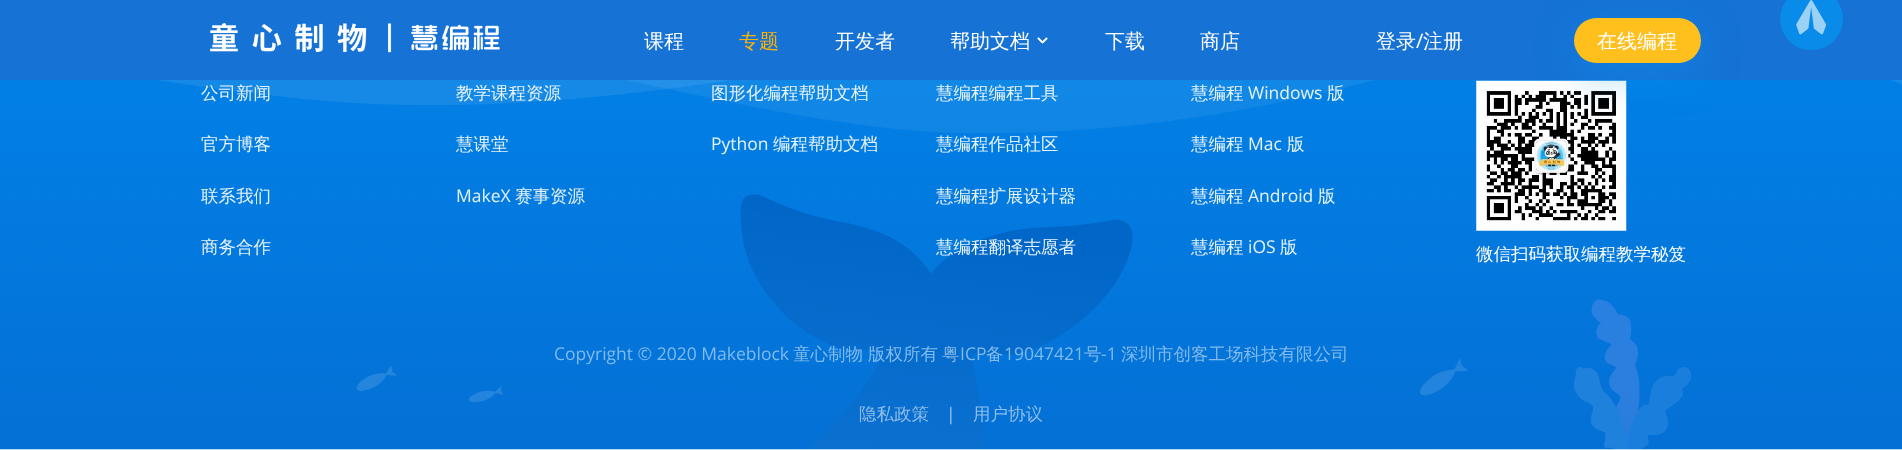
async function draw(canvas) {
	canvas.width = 1902;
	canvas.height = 450;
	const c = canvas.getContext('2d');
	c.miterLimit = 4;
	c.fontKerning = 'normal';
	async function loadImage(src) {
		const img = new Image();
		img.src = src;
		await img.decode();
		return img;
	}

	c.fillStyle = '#f5fbff';
	c.fillRect(0, 0, 1902, 450);
	c.fillStyle = '#1672d5';
	c.fillRect(0, 0, 1902, 80);
	c.drawImage(await loadImage('img1.png'), 210, 23, 290, 30);
	c.font = '500 20px WenQuanYi Zen Hei';
	c.fillStyle = '#fff';
	c.fillText('课程', 644, 48);
	c.fillStyle = '#ffb200';
	c.fillText('专题', 739, 48);
	c.fillStyle = '#fff';
	c.fillText('开发者', 835, 48);
	c.fillText('帮助文档', 950, 48);
	c.drawImage(await loadImage('img2.png'), 1037, 37, 11, 7);
	for (const [text, x, y] of [
		['下载', 1105, 48],
		['商店', 1200, 48],
		['登录', 1376, 48],
	]) {
		c.fillText(text, x, y);
	}
	c.font = '20px Open Sans';
	c.fillText('/', 1416, 48);
	c.font = '500 20px WenQuanYi Zen Hei';
	c.fillText('注册', 1423, 48);
	c.drawImage(await loadImage('img4.png'), 0, 80, 1902, 370);
	c.drawImage(await loadImage('img5.png'), 1476, 80, 151, 151);
	c.fillStyle = '#0597f066';
	c.filter = 'blur(20px)';
	c.beginPath();
	c.roundRect(1574, 28, 127, 45, 22.5);
	c.fill();
	c.filter = 'none';
	c.fillStyle = '#ffc01e';
	c.beginPath();
	c.roundRect(1574, 18, 127, 45, 22.5);
	c.fill();
	c.fillStyle = '#fff';
	c.fillText('在线编程', 1597, 48);
	c.fillStyle = '#098ce9';
	c.beginPath();
	c.roundRect(1780, -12, 63, 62, 31);
	c.fill();
	c.drawImage(await loadImage('img3.png'), 1796, 0, 31, 35);
	c.font = '500 17.5px WenQuanYi Zen Hei';
	c.fillStyle = '#e7f3fc';
	for (const [text, x, y] of [
		['公司新闻', 201, 99],
		['官方博客', 201, 150],
		['联系我们', 201, 202],
		['商务合作', 201, 253],
		['教学课程资源', 456, 99],
		['慧课堂', 456, 150],
	]) {
		c.fillText(text, x, y);
	}
	c.font = '17.5px Open Sans';
	c.fillText('MakeX', 456, 202);
	c.font = '500 17.5px WenQuanYi Zen Hei';
	c.fillText('赛事资源', 515, 202);
	c.fillText('图形化编程帮助文档', 711, 99);
	c.font = '17.5px Open Sans';
	c.fillText('Python', 711, 150);
	c.font = '500 17.5px WenQuanYi Zen Hei';
	for (const [text, x, y] of [
		['编程帮助文档', 773, 150],
		['慧编程编程工具', 936, 99],
		['慧编程作品社区', 936, 150],
		['慧编程扩展设计器', 936, 202],
		['慧编程翻译志愿者', 936, 253],
		['慧编程', 1191, 99],
	]) {
		c.fillText(text, x, y);
	}
	c.font = '17.5px Open Sans';
	c.fillText('Windows', 1248, 99);
	c.font = '500 17.5px WenQuanYi Zen Hei';
	c.fillText('版', 1327, 99);
	c.fillText('慧编程', 1191, 150);
	c.font = '17.5px Open Sans';
	c.fillText('Mac', 1248, 150);
	c.font = '500 17.5px WenQuanYi Zen Hei';
	c.fillText('版', 1287, 150);
	c.fillText('慧编程', 1191, 202);
	c.font = '17.5px Open Sans';
	c.fillText('Android', 1248, 202);
	c.font = '500 17.5px WenQuanYi Zen Hei';
	c.fillText('版', 1318, 202);
	c.fillText('慧编程', 1191, 253);
	c.font = '17.5px Open Sans';
	c.fillText('iOS', 1248, 253);
	c.font = '500 17.5px WenQuanYi Zen Hei';
	c.fillText('版', 1280, 253);
	c.fillStyle = '#fff';
	c.fillText('微信扫码获取编程教学秘笈', 1476, 260);
	c.font = '17.5px Open Sans';
	c.fillStyle = '#81baec';
	c.fillText('Copyright © 2020 Makeblock', 554, 360);
	c.font = '500 17.5px WenQuanYi Zen Hei';
	c.fillText('童心制物', 793, 360);
	c.fillText('版权所有', 868, 360);
	c.fillStyle = '#82b5e6';
	c.fillText('粤', 942, 360);
	c.font = '17.5px Open Sans';
	c.fillStyle = '#81baec';
	c.fillText('ICP', 960, 360);
	c.font = '500 17.5px WenQuanYi Zen Hei';
	c.fillText('备', 986, 360);
	c.font = '17.5px Open Sans';
	c.fillText('19047421', 1004, 360);
	c.font = '500 17.5px WenQuanYi Zen Hei';
	c.fillText('号', 1084, 360);
	c.font = '17.5px Open Sans';
	c.fillText('-1', 1101, 360);
	c.font = '500 17.5px WenQuanYi Zen Hei';
	c.fillText('深圳市创客工场科技有限公司', 1121, 360);
	c.fillStyle = '#8ebde9';
	c.fillText('隐私政策', 859, 420);
	c.font = '17.5px Open Sans';
	c.fillStyle = '#9cc5ec';
	c.fillText('|', 946, 420);
	c.font = '500 17.5px WenQuanYi Zen Hei';
	c.fillStyle = '#8ebde9';
	c.fillText('用户协议', 973, 420);
}

draw(document.querySelector('canvas'));
